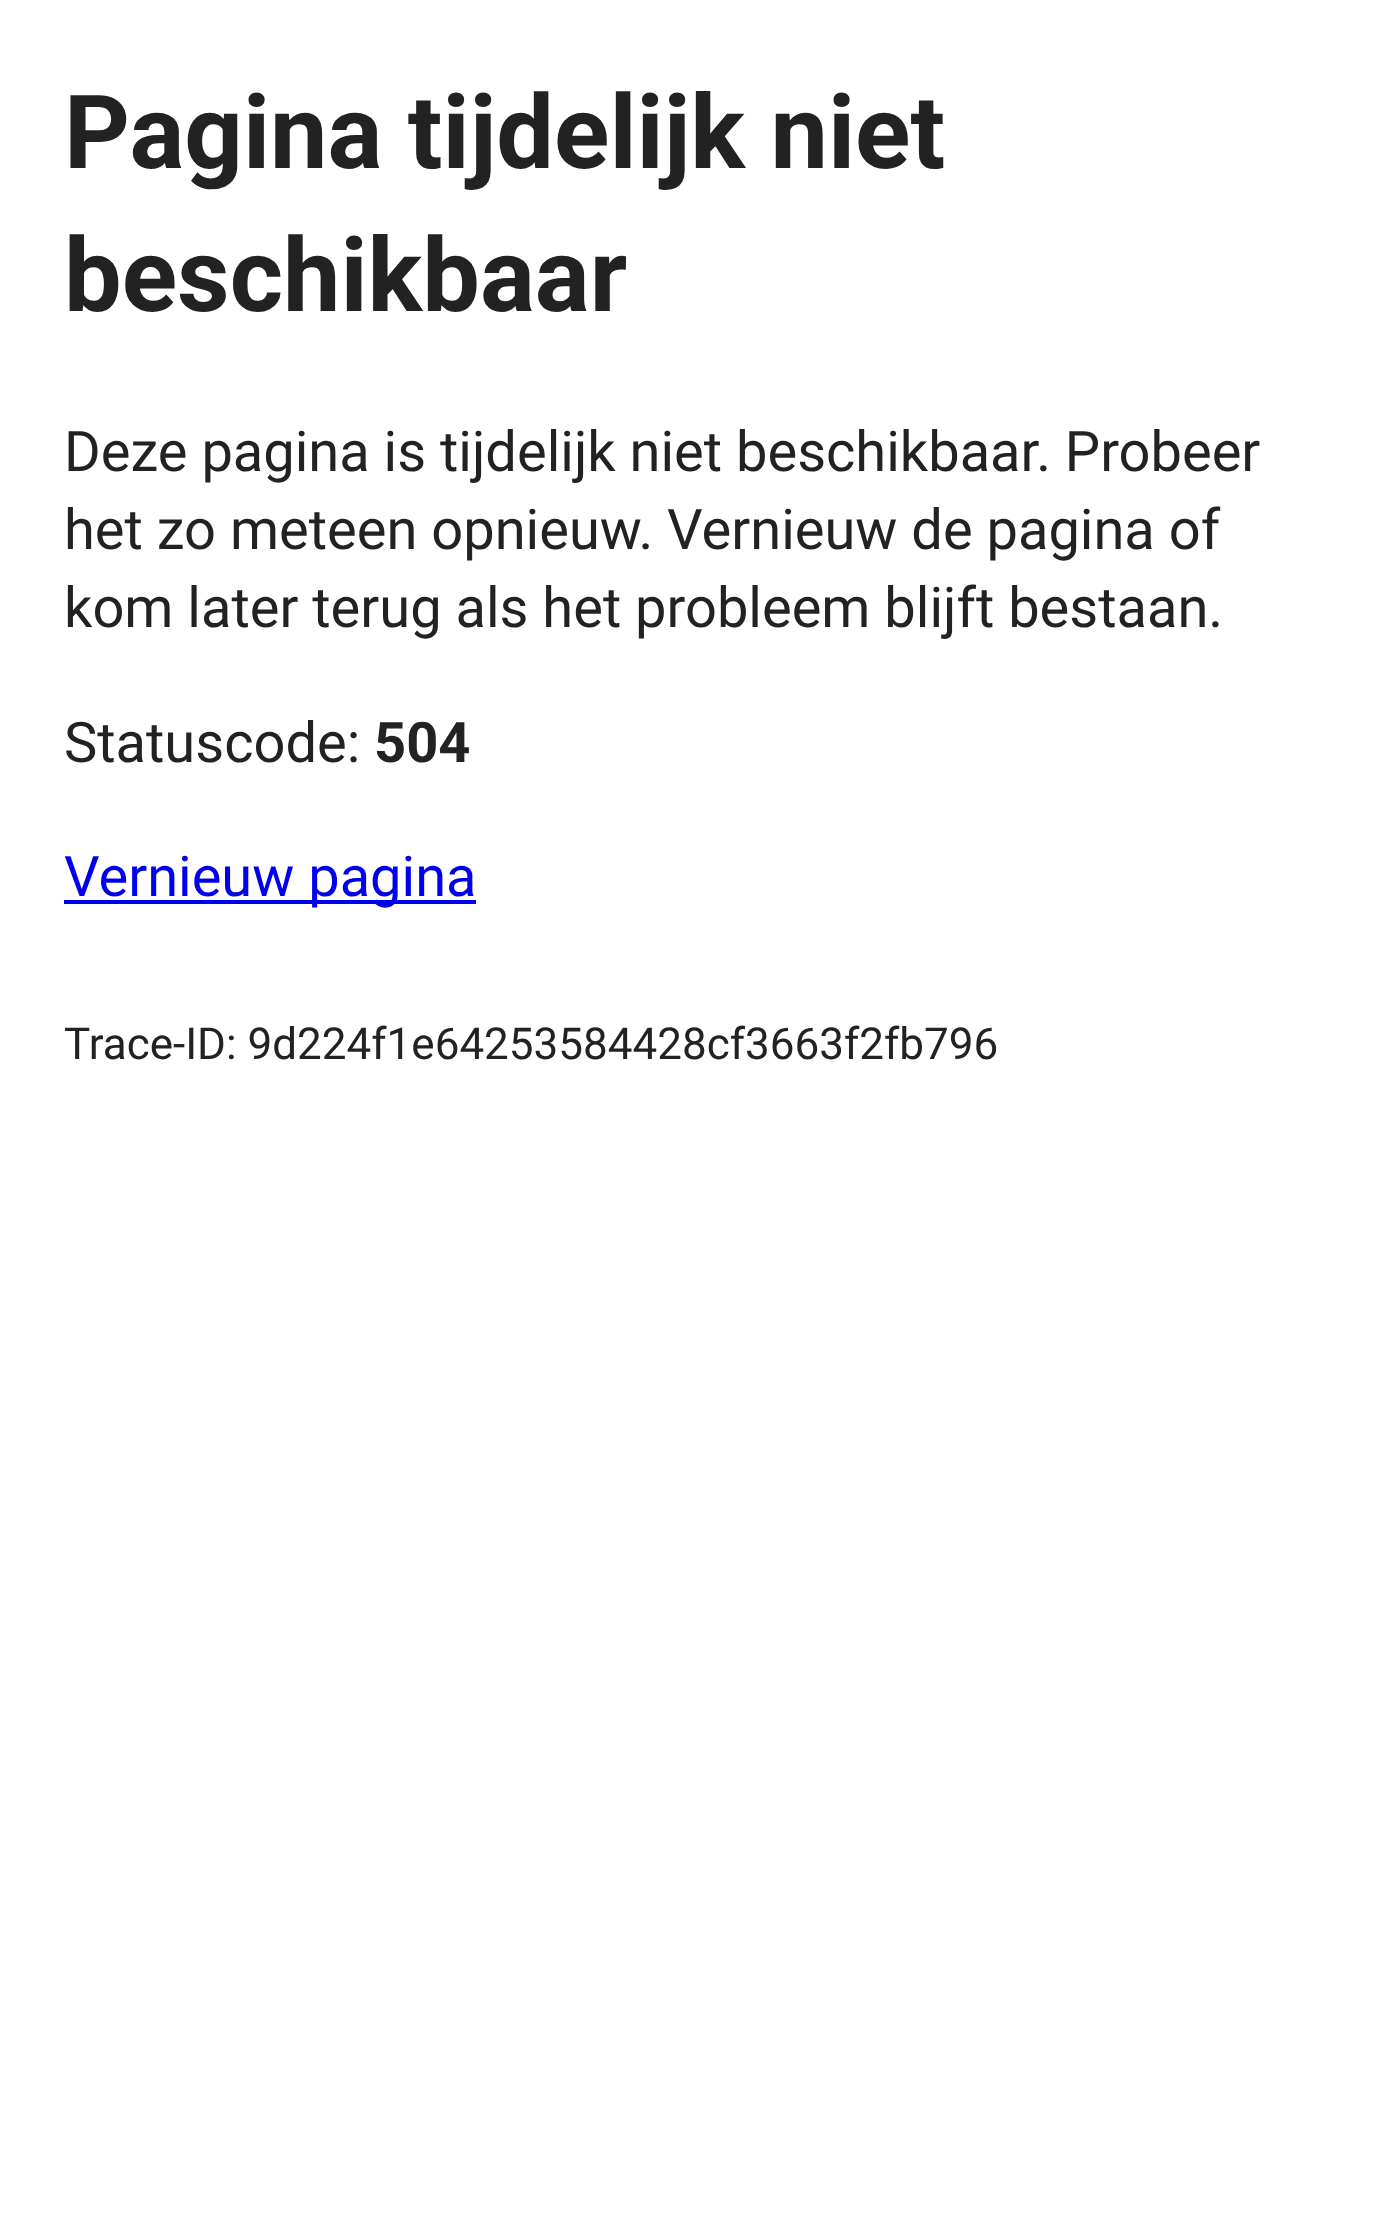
async function draw(canvas) {
	canvas.width = 1395;
	canvas.height = 2232;
	const c = canvas.getContext('2d');
	c.miterLimit = 4;
	c.fontKerning = 'normal';

	c.fillStyle = '#fff';
	c.fillRect(0, 0, 1395, 2232);
	c.font = 'bold 102.5px Roboto';
	c.fillStyle = '#222';
	c.fillText('Pagina tijdelijk niet', 64, 168);
	c.fillText('beschikbaar', 64, 311);
	c.font = '56px Roboto';
	for (const [text, x, y] of [
		['Deze pagina is tijdelijk niet beschikbaar. Probeer', 64, 471],
		['het zo meteen opnieuw. Vernieuw de pagina of', 64, 549],
		['kom later terug als het probleem blijft bestaan.', 64, 627],
		['Statuscode:', 64, 762],
	]) {
		c.fillText(text, x, y);
	}
	c.font = 'bold 56px Roboto';
	c.fillText('504', 374, 762);
	c.fillStyle = '#00e';
	c.fillRect(64, 900, 412, 4);
	c.font = '56px Roboto';
	c.fillText('Vernieuw pagina', 64, 896);
	c.font = '44px Roboto';
	c.fillStyle = '#222';
	c.fillText('Trace-ID: 9d224f1e64253584428cf3663f2fb796', 64, 1059);
}

draw(document.querySelector('canvas'));
